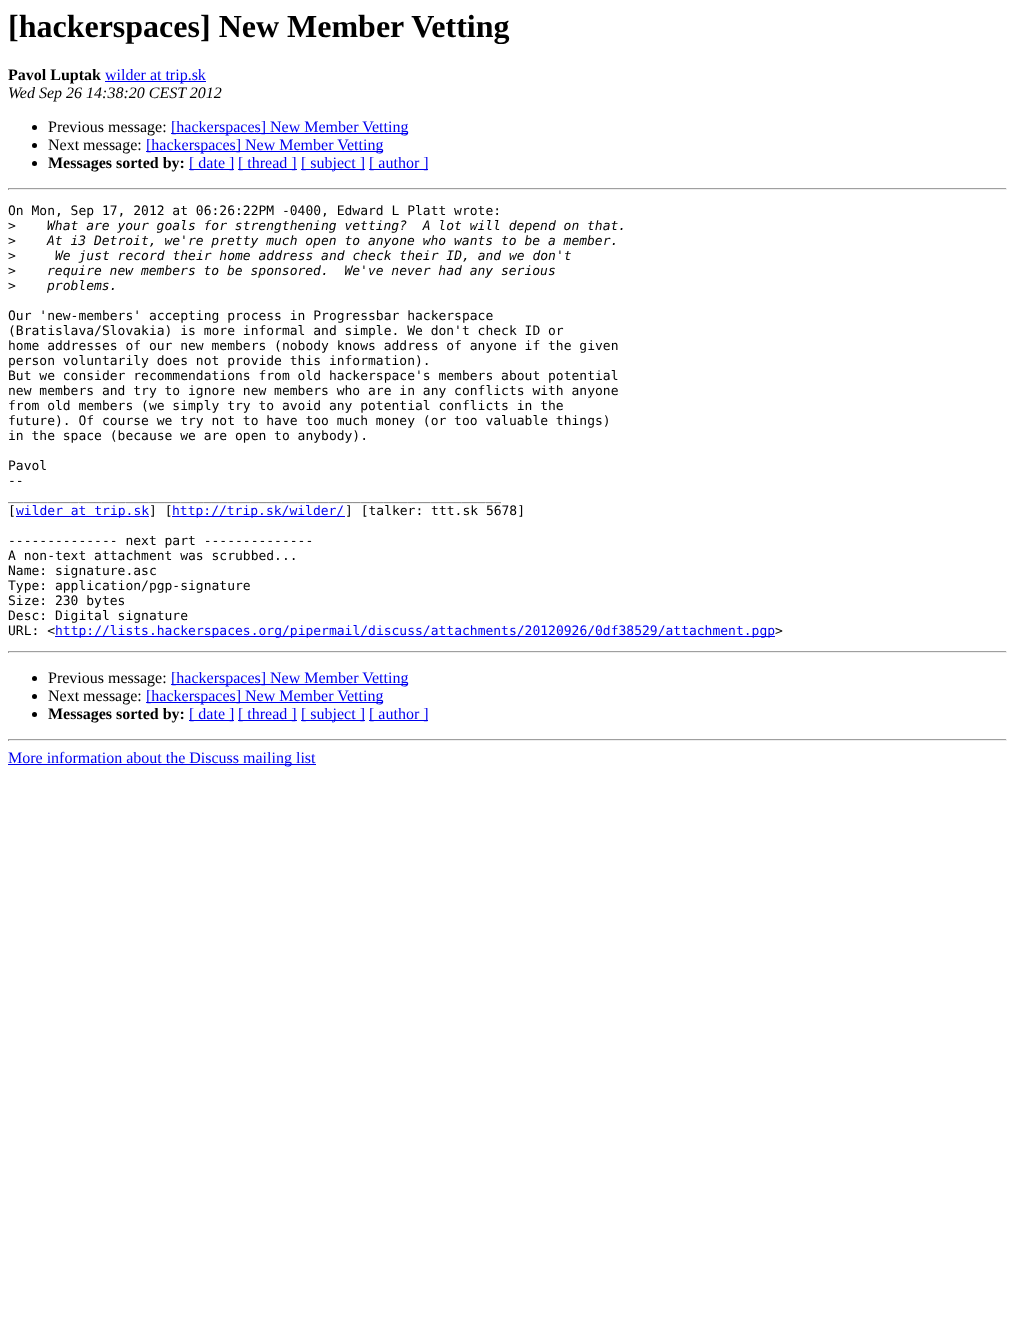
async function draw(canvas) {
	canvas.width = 1015;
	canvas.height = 1335;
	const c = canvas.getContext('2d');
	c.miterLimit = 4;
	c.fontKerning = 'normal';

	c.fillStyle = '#fff';
	c.fillRect(0, 0, 1015, 1335);
	c.font = 'bold 32px Liberation Serif';
	c.fillStyle = '#000';
	c.fillText('[hackerspaces] New Member Vetting', 8, 37);
	c.font = 'bold 16px Liberation Serif';
	c.fillText('Pavol Luptak', 8, 80);
	c.fillStyle = '#00e';
	c.fillRect(105, 81, 101, 1);
	c.font = '16px Liberation Serif';
	c.fillText('wilder at trip.sk', 105, 80);
	c.font = 'italic 16px Liberation Serif';
	c.fillStyle = '#000';
	c.fillText('Wed Sep 26 14:38:20 CEST 2012', 8, 98);
	c.beginPath();
	c.arc(34.5, 127.5, 2.5, 0, 2 * Math.PI);
	c.fill();
	c.font = '16px Liberation Serif';
	c.fillText('Previous message:', 48, 132);
	c.fillStyle = '#00e';
	c.fillRect(171, 133, 237, 1);
	c.fillText('[hackerspaces] New Member Vetting', 171, 132);
	c.fillStyle = '#000';
	c.beginPath();
	c.arc(34.5, 145.5, 2.5, 0, 2 * Math.PI);
	c.fill();
	c.fillText('Next message:', 48, 150);
	c.fillStyle = '#00e';
	c.fillRect(146, 151, 237, 1);
	c.fillText('[hackerspaces] New Member Vetting', 146, 150);
	c.fillStyle = '#000';
	c.beginPath();
	c.arc(34.5, 163.5, 2.5, 0, 2 * Math.PI);
	c.fill();
	c.font = 'bold 16px Liberation Serif';
	c.fillText('Messages sorted by:', 48, 168);
	c.fillStyle = '#00e';
	c.fillRect(189, 169, 45, 1);
	c.font = '16px Liberation Serif';
	c.fillText('[ date ]', 189, 168);
	c.fillRect(238, 169, 59, 1);
	c.fillText('[ thread ]', 238, 168);
	c.fillRect(301, 169, 64, 1);
	c.fillText('[ subject ]', 301, 168);
	c.fillRect(369, 169, 59, 1);
	c.fillText('[ author ]', 369, 168);
	for (const [x, y, w, h, color] of [
		[8, 188, 999, 1, '#9f9f9f'],
		[1006, 188, 1, 2, '#eee'],
		[8, 189, 999, 1, '#eee'],
		[8, 188, 1, 2, '#9f9f9f'],
	]) {
		c.fillStyle = color;
		c.fillRect(x, y, w, h);
	}
	c.font = '13px DejaVu Sans Mono';
	c.fillStyle = '#000';
	c.fillText('On Mon, Sep 17, 2012 at 06:26:22PM -0400, Edward L Platt wrote:', 8, 215);
	c.fillText('>', 8, 230);
	c.font = 'italic 13px DejaVu Sans Mono';
	c.fillText('What are your goals for strengthening vetting?  A lot will depend on that.', 47, 230);
	c.font = '13px DejaVu Sans Mono';
	c.fillText('>', 8, 245);
	c.font = 'italic 13px DejaVu Sans Mono';
	c.fillText('At i3 Detroit, we\'re pretty much open to anyone who wants to be a member.', 47, 245);
	c.font = '13px DejaVu Sans Mono';
	c.fillText('>', 8, 260);
	c.font = 'italic 13px DejaVu Sans Mono';
	c.fillText('We just record their home address and check their ID, and we don\'t', 55, 260);
	c.font = '13px DejaVu Sans Mono';
	c.fillText('>', 8, 275);
	c.font = 'italic 13px DejaVu Sans Mono';
	c.fillText('require new members to be sponsored.  We\'ve never had any serious', 47, 275);
	c.font = '13px DejaVu Sans Mono';
	c.fillText('>', 8, 290);
	c.font = 'italic 13px DejaVu Sans Mono';
	c.fillText('problems.', 47, 290);
	c.font = '13px DejaVu Sans Mono';
	for (const [text, x, y] of [
		['Our \'new-members\' accepting process in Progressbar hackerspace', 8, 320],
		['(Bratislava/Slovakia) is more informal and simple. We don\'t check ID or', 8, 335],
		['home addresses of our new members (nobody knows address of anyone if the given', 8, 350],
		['person voluntarily does not provide this information).', 8, 365],
		['But we consider recommendations from old hackerspace\'s members about potential', 8, 380],
		['new members and try to ignore new members who are in any conflicts with anyone', 8, 395],
		['from old members (we simply try to avoid any potential conflicts in the', 8, 410],
		['future). Of course we try not to have too much money (or too valuable things)', 8, 425],
		['in the space (because we are open to anybody).', 8, 440],
		['Pavol', 8, 470],
		['--', 8, 485],
		['_______________________________________________________________', 8, 500],
		['[', 8, 515],
	]) {
		c.fillText(text, x, y);
	}
	c.fillStyle = '#00e';
	c.fillRect(16, 516, 133, 1);
	c.fillText('wilder at trip.sk', 16, 515);
	c.fillStyle = '#000';
	c.fillText('] [', 149, 515);
	c.fillStyle = '#00e';
	c.fillRect(172, 516, 173, 1);
	c.fillText('http://trip.sk/wilder/', 172, 515);
	c.fillStyle = '#000';
	for (const [text, x, y] of [
		['] [talker: ttt.sk 5678]', 345, 515],
		['-------------- next part --------------', 8, 545],
		['A non-text attachment was scrubbed...', 8, 560],
		['Name: signature.asc', 8, 575],
		['Type: application/pgp-signature', 8, 590],
		['Size: 230 bytes', 8, 605],
		['Desc: Digital signature', 8, 620],
		['URL: <', 8, 635],
	]) {
		c.fillText(text, x, y);
	}
	c.fillStyle = '#00e';
	c.fillRect(55, 636, 720, 1);
	c.fillText('http://lists.hackerspaces.org/pipermail/discuss/attachments/20120926/0df38529/attachment.pgp', 55, 635);
	c.fillStyle = '#000';
	c.fillText('>', 775, 635);
	for (const [x, y, w, h, color] of [
		[8, 651, 999, 1, '#9f9f9f'],
		[1006, 651, 1, 2, '#eee'],
		[8, 652, 999, 1, '#eee'],
		[8, 651, 1, 2, '#9f9f9f'],
	]) {
		c.fillStyle = color;
		c.fillRect(x, y, w, h);
	}
	c.fillStyle = '#000';
	c.beginPath();
	c.arc(34.5, 678.5, 2.5, 0, 2 * Math.PI);
	c.fill();
	c.font = '16px Liberation Serif';
	c.fillText('Previous message:', 48, 683);
	c.fillStyle = '#00e';
	c.fillRect(171, 684, 237, 1);
	c.fillText('[hackerspaces] New Member Vetting', 171, 683);
	c.fillStyle = '#000';
	c.beginPath();
	c.arc(34.5, 696.5, 2.5, 0, 2 * Math.PI);
	c.fill();
	c.fillText('Next message:', 48, 701);
	c.fillStyle = '#00e';
	c.fillRect(146, 702, 237, 1);
	c.fillText('[hackerspaces] New Member Vetting', 146, 701);
	c.fillStyle = '#000';
	c.beginPath();
	c.arc(34.5, 714.5, 2.5, 0, 2 * Math.PI);
	c.fill();
	c.font = 'bold 16px Liberation Serif';
	c.fillText('Messages sorted by:', 48, 719);
	c.fillStyle = '#00e';
	c.fillRect(189, 720, 45, 1);
	c.font = '16px Liberation Serif';
	c.fillText('[ date ]', 189, 719);
	c.fillRect(238, 720, 59, 1);
	c.fillText('[ thread ]', 238, 719);
	c.fillRect(301, 720, 64, 1);
	c.fillText('[ subject ]', 301, 719);
	c.fillRect(369, 720, 59, 1);
	c.fillText('[ author ]', 369, 719);
	for (const [x, y, w, h, color] of [
		[8, 739, 999, 1, '#9f9f9f'],
		[1006, 739, 1, 2, '#eee'],
		[8, 740, 999, 1, '#eee'],
		[8, 739, 1, 2, '#9f9f9f'],
		[8, 764, 308, 1, '#00e'],
	]) {
		c.fillStyle = color;
		c.fillRect(x, y, w, h);
	}
	c.fillText('More information about the Discuss mailing list', 8, 763);
}

draw(document.querySelector('canvas'));
